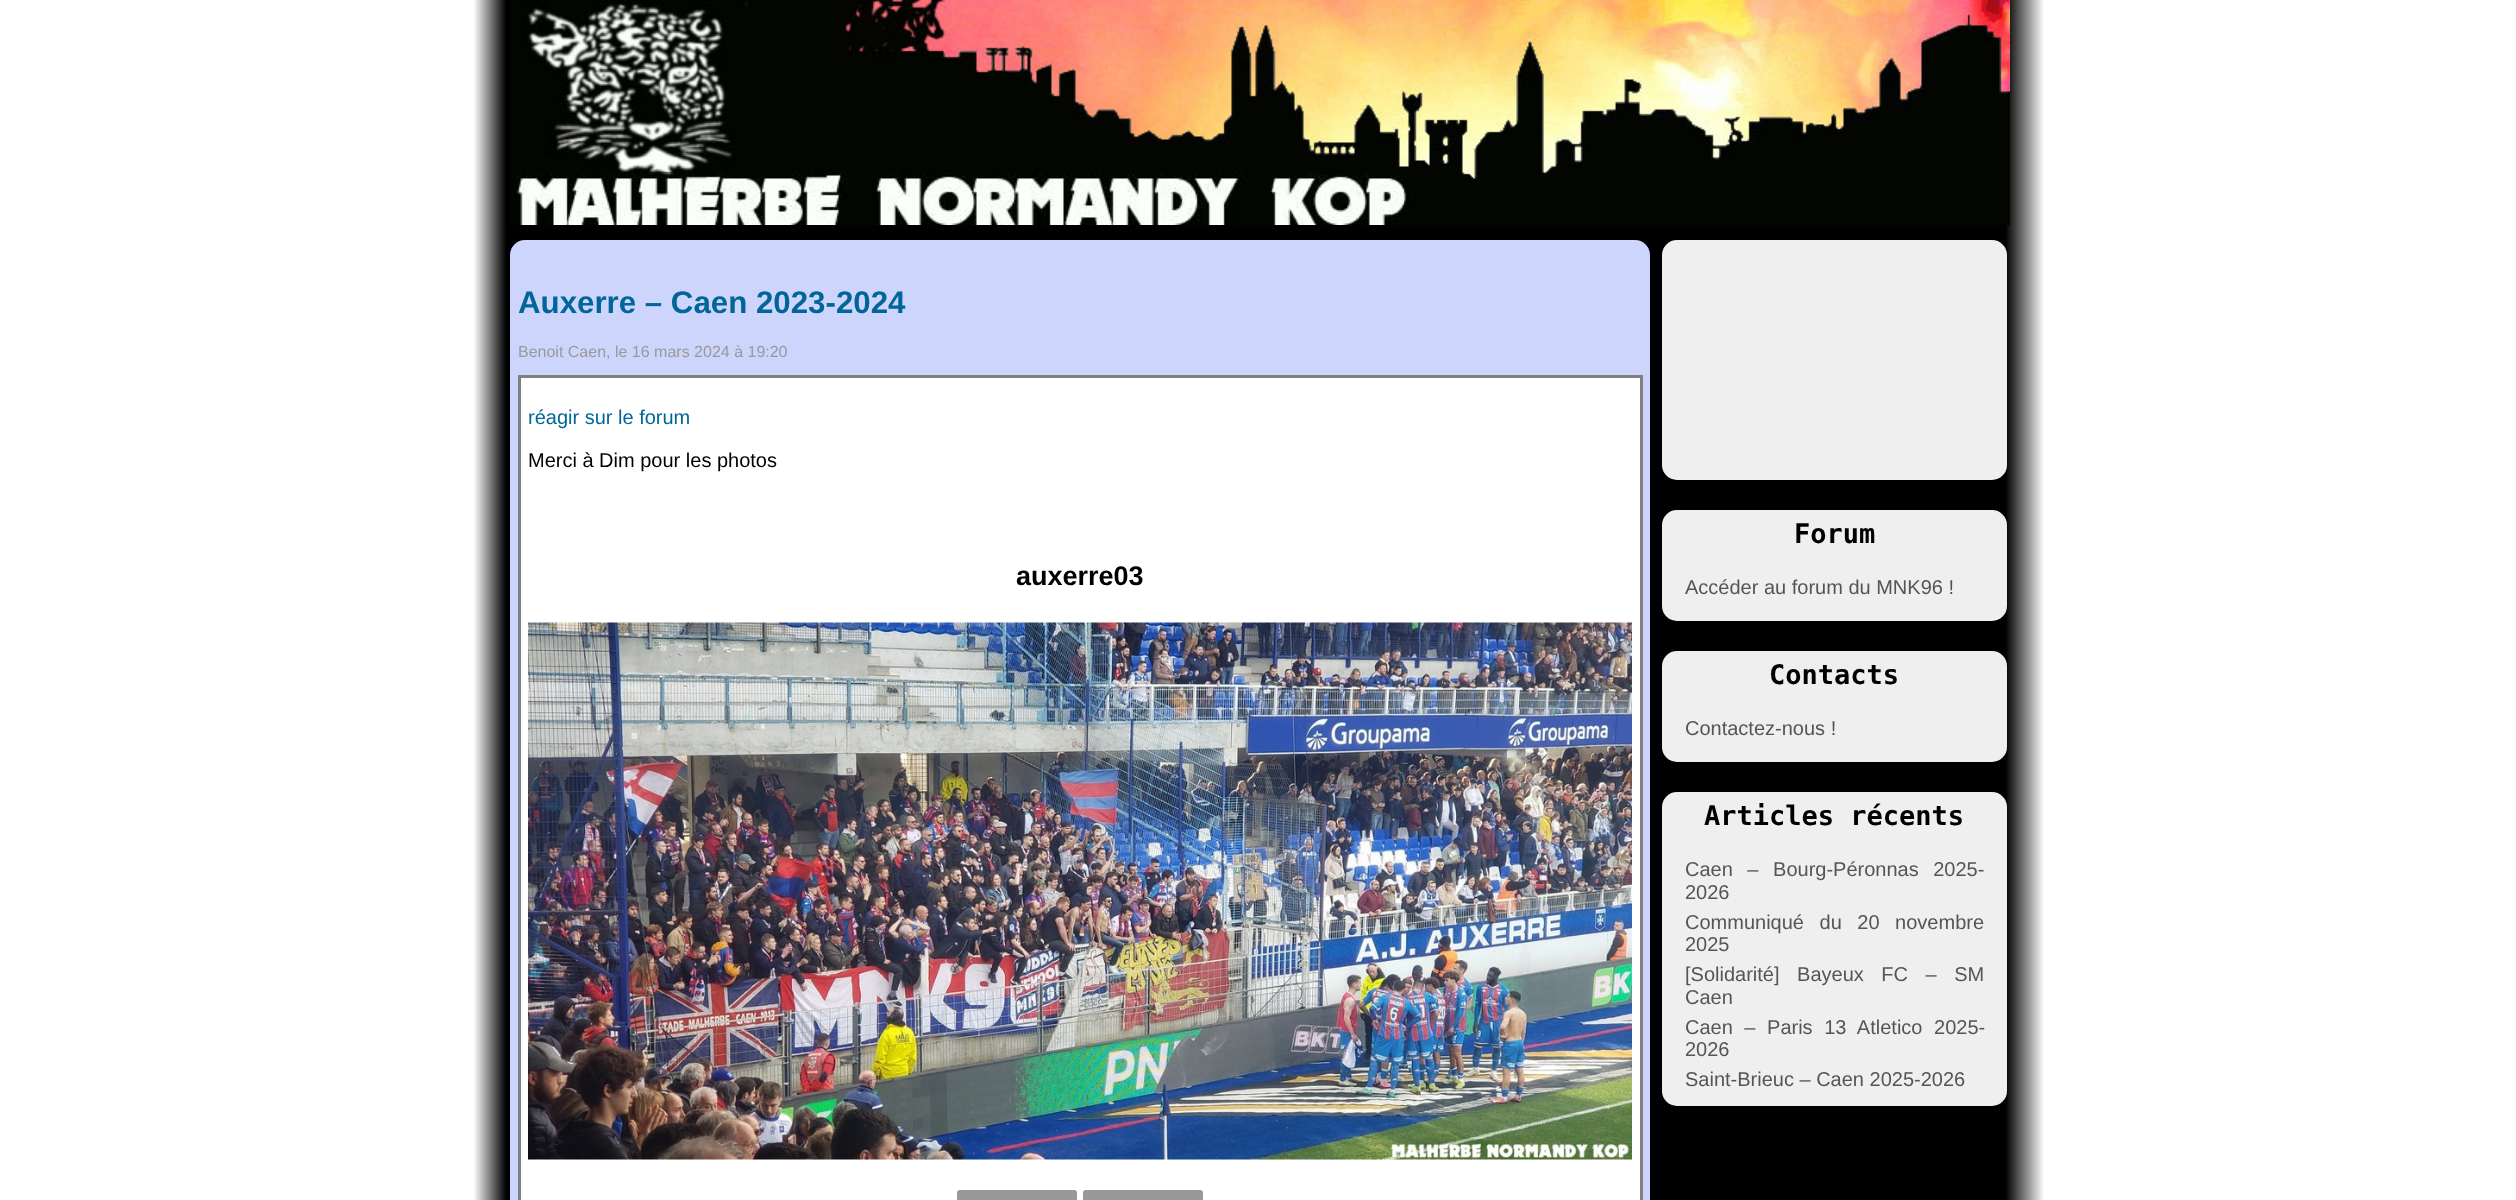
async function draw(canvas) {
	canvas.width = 2516;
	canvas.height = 1200;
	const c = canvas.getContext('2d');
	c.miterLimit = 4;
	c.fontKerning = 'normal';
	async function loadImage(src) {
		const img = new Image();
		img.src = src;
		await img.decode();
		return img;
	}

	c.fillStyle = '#fff';
	c.fillRect(0, 0, 2516, 1200);
	c.drawImage(await loadImage('img1.png'), 474, 0, 1570, 1200);
	c.drawImage(await loadImage('img2.png'), 510, 0, 1500, 225);
	c.drawImage(await loadImage('img3.png'), 515, 172, 897, 53);
	c.fillStyle = '#cdd5fc';
	c.beginPath();
	c.roundRect(510, 240, 1140, 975, 15);
	c.fill();
	c.font = 'bold 31.25px Liberation Sans';
	c.fillStyle = '#069';
	c.fillText('Auxerre – Caen 2023-2024', 518, 313);
	c.font = '16px Liberation Sans';
	c.fillStyle = '#999';
	c.fillText('Benoit Caen, le 16 mars 2024 à 19:20', 518, 357);
	c.fillStyle = '#fff';
	c.beginPath();
	c.rect(519.5, 376.5, 1122, 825);
	c.fill();
	c.strokeStyle = '#808080';
	c.lineWidth = 3;
	c.stroke();
	c.font = '20px Liberation Sans';
	c.fillStyle = '#069';
	c.fillText('réagir sur le forum', 528, 424);
	c.fillStyle = '#000';
	c.fillText('Merci à Dim pour les photos', 528, 467);
	c.font = 'bold 27px Liberation Sans';
	c.fillText('auxerre03', 1016, 585);
	c.drawImage(await loadImage('img4.png'), 528, 622, 1104, 538);
	c.fillStyle = '#999';
	c.beginPath();
	c.roundRect(957, 1190, 120, 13, 3);
	c.fill();
	c.beginPath();
	c.roundRect(1083, 1190, 120, 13, 3);
	c.fill();
	c.fillStyle = '#efefef';
	c.beginPath();
	c.roundRect(1662, 240, 345, 240, 15);
	c.fill();
	c.beginPath();
	c.roundRect(1662, 510, 345, 111, 15);
	c.fill();
	c.font = 'bold 27px DejaVu Sans Mono';
	c.fillStyle = '#000';
	c.fillText('Forum', 1794, 543);
	c.font = '20px Liberation Sans';
	c.fillStyle = '#555';
	c.fillText('Accéder au forum du MNK96 !', 1685, 594);
	c.fillStyle = '#efefef';
	c.beginPath();
	c.roundRect(1662, 651, 345, 111, 15);
	c.fill();
	c.font = 'bold 27px DejaVu Sans Mono';
	c.fillStyle = '#000';
	c.fillText('Contacts', 1769, 684);
	c.font = '20px Liberation Sans';
	c.fillStyle = '#555';
	c.fillText('Contactez-nous !', 1685, 735);
	c.fillStyle = '#efefef';
	c.beginPath();
	c.roundRect(1662, 792, 345, 314, 15);
	c.fill();
	c.font = 'bold 27px DejaVu Sans Mono';
	c.fillStyle = '#000';
	c.fillText('Articles récents', 1704, 825);
	c.wordSpacing = '9px';
	c.font = '20px Liberation Sans';
	c.fillStyle = '#555';
	c.fillText('Caen – Bourg-Péronnas 2025-', 1685, 876);
	c.wordSpacing = '0px';
	c.fillText('2026', 1685, 899);
	c.wordSpacing = '10px';
	c.fillText('Communiqué du 20 novembre', 1685, 929);
	c.wordSpacing = '0px';
	c.fillText('2025', 1685, 951);
	c.wordSpacing = '12px';
	c.fillText('[Solidarité] Bayeux FC – SM', 1685, 981);
	c.wordSpacing = '0px';
	c.fillText('Caen', 1685, 1004);
	c.wordSpacing = '6px';
	c.fillText('Caen – Paris 13 Atletico 2025-', 1685, 1034);
	c.wordSpacing = '0px';
	c.fillText('2026', 1685, 1056);
	c.fillText('Saint-Brieuc – Caen 2025-2026', 1685, 1086);
}

draw(document.querySelector('canvas'));
